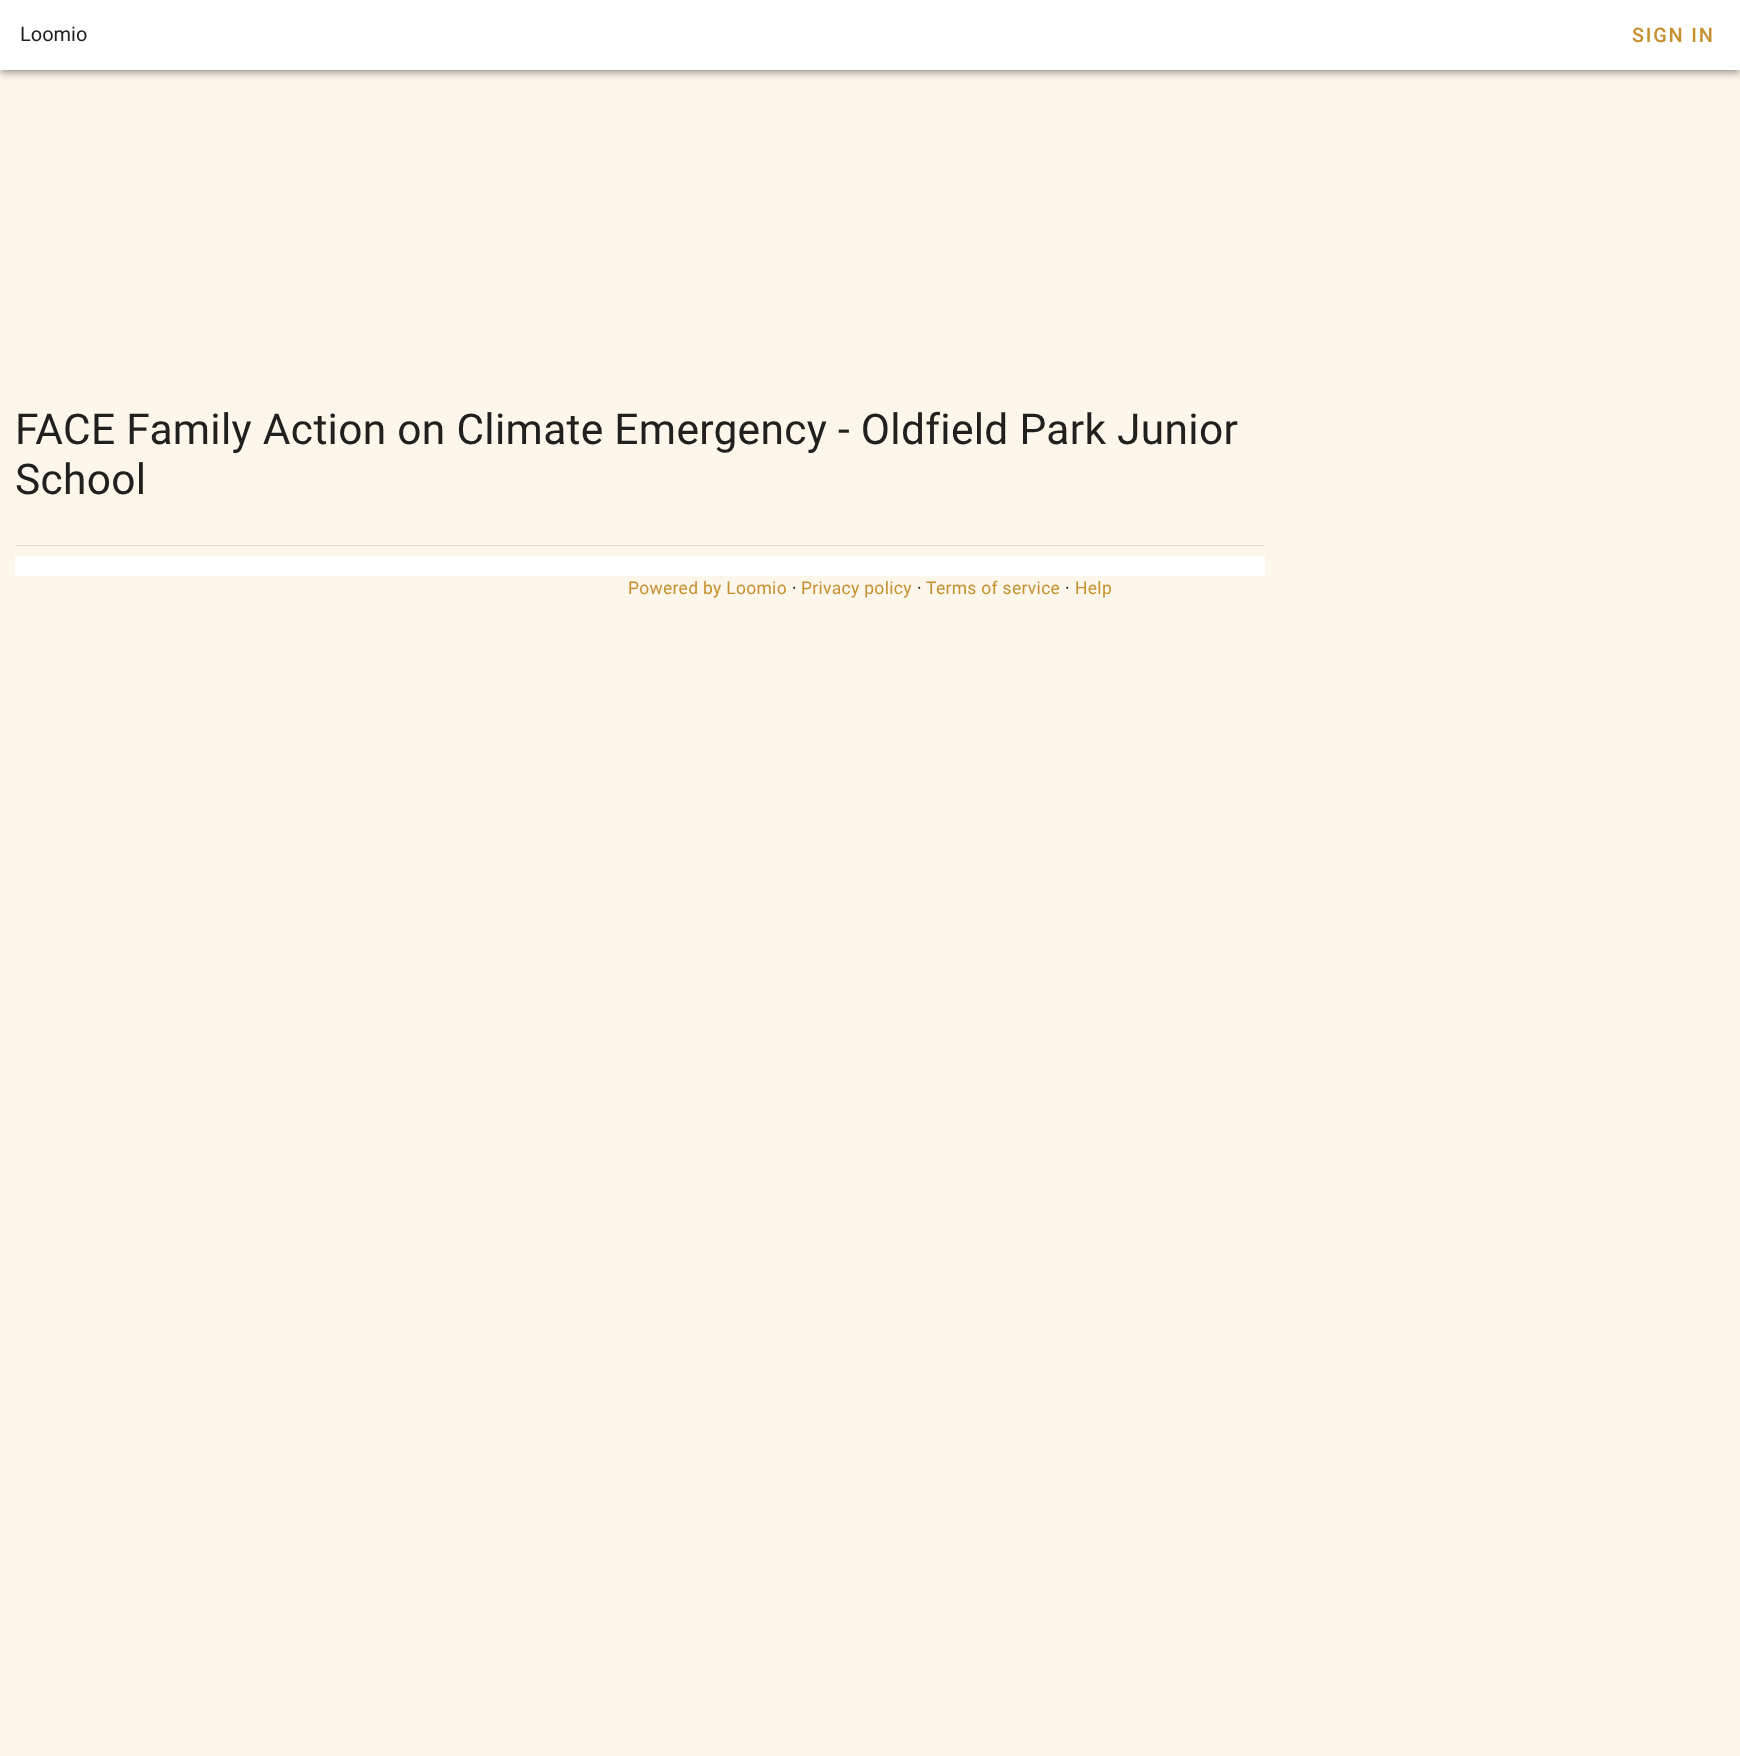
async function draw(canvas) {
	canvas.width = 1740;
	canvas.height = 1756;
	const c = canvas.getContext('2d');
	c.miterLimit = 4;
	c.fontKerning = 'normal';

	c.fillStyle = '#fcf6eb';
	c.fillRect(0, 0, 1740, 1756);
	c.fillStyle = '#0000001f';
	c.filter = 'blur(6px)';
	c.beginPath();
	c.rect(0, 1, 1740, 70);
	c.fill();
	c.filter = 'none';
	c.fillStyle = '#00000024';
	c.filter = 'blur(3px)';
	c.beginPath();
	c.rect(0, 5, 1740, 70);
	c.fill();
	c.filter = 'none';
	c.fillStyle = '#00000033';
	c.filter = 'blur(2.5px)';
	c.beginPath();
	c.rect(1, 4, 1738, 67);
	c.fill();
	c.filter = 'none';
	c.fillStyle = '#fff';
	c.fillRect(0, 0, 1740, 70);
	c.font = '20px Roboto';
	c.fillStyle = '#21201f';
	c.fillText('Loomio', 20, 41);
	c.letterSpacing = '1.75px';
	c.font = '500 20px Roboto';
	c.fillStyle = '#c6902f';
	c.fillText('SIGN IN', 1632, 42);
	c.letterSpacing = '0.3px';
	c.font = '42.5px Roboto';
	c.fillStyle = '#21201f';
	c.fillText('FACE Family Action on Climate Emergency - Oldfield Park Junior', 15, 444);
	c.fillText('School', 15, 494);
	c.fillStyle = '#e2dcd3';
	c.fillRect(15, 545, 1250, 1);
	c.fillStyle = '#fff';
	c.fillRect(15, 556, 1250, 20);
	c.font = '17.5px Roboto';
	c.fillStyle = '#c6902f';
	c.fillText('Powered by Loomio', 628, 594);
	c.fillStyle = '#21201f';
	c.fillText('·', 792, 594);
	c.fillStyle = '#c6902f';
	c.fillText('Privacy policy', 801, 594);
	c.fillStyle = '#21201f';
	c.fillText('·', 917, 594);
	c.fillStyle = '#c6902f';
	c.fillText('Terms of service', 926, 594);
	c.fillStyle = '#21201f';
	c.fillText('·', 1065, 594);
	c.fillStyle = '#c6902f';
	c.fillText('Help', 1075, 594);
}

draw(document.querySelector('canvas'));
